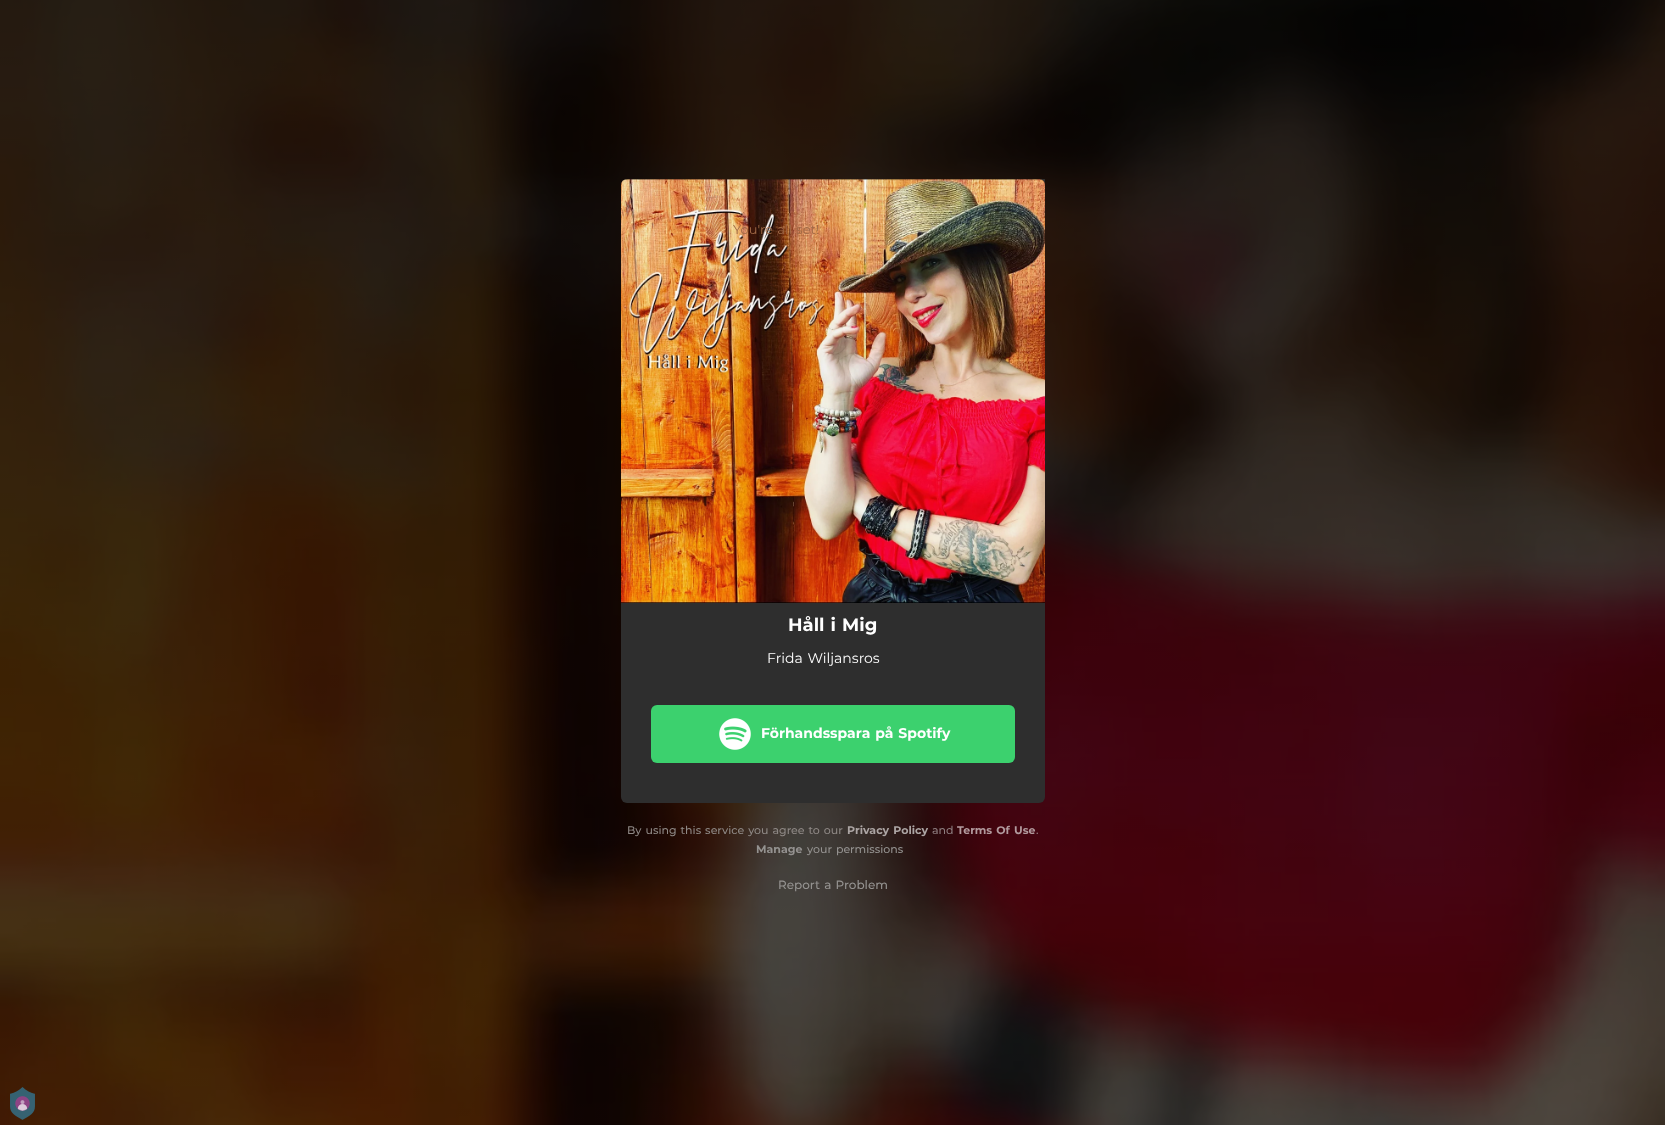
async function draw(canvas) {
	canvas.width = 1665;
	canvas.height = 1125;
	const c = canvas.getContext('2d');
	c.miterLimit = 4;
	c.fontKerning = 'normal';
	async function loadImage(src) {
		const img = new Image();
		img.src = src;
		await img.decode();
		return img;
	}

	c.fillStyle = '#fff';
	c.fillRect(0, 0, 1665, 1125);
	c.drawImage(await loadImage('img1.png'), 0, 0, 1665, 1125);
	c.fillStyle = '#2f2f2f';
	c.beginPath();
	c.roundRect(621, 179, 424, 424, [6, 0, 0, 6]);
	c.fill();
	c.drawImage(await loadImage('img2.png'), 621, 179, 424, 424);
	c.wordSpacing = '1px';
	c.font = '13px Montserrat';
	c.fillStyle = '#a16a47';
	c.fillText('You\'re all set!', 733, 234);
	c.fillStyle = '#2e2e2e';
	c.beginPath();
	c.roundRect(621, 603, 424, 200, [0, 0, 6, 6]);
	c.fill();
	c.font = 'bold 18px Montserrat';
	c.fillStyle = '#fff';
	c.fillText('Håll i Mig', 788, 631);
	c.font = '14px Montserrat';
	c.fillText('Frida Wiljansros', 767, 663);
	c.fillStyle = '#3cd16e';
	c.beginPath();
	c.roundRect(651, 705, 364, 58, 6);
	c.fill();
	c.drawImage(await loadImage('img3.png'), 719, 718, 32, 32);
	c.font = 'bold 14px Montserrat';
	c.fillStyle = '#fff';
	c.fillText('Förhandsspara på Spotify', 761, 738);
	c.font = '500 11px Montserrat';
	c.fillStyle = '#8e8885';
	c.fillText('By using this service you agree to our', 627, 834);
	c.font = 'bold 11px Montserrat';
	c.fillStyle = '#aca5a4';
	c.fillText('Privacy Policy', 847, 834);
	c.wordSpacing = '0px';
	c.font = '500 11px Montserrat';
	c.fillStyle = '#8d7d7f';
	c.fillText('and', 932, 834);
	c.wordSpacing = '1px';
	c.font = 'bold 11px Montserrat';
	c.fillStyle = '#b29a9e';
	c.fillText('Terms Of Use', 957, 834);
	c.wordSpacing = '0px';
	c.font = '500 11px Montserrat';
	c.fillStyle = '#957c81';
	c.fillText('.', 1036, 834);
	c.font = 'bold 11px Montserrat';
	c.fillStyle = '#949290';
	c.fillText('Manage', 756, 853);
	c.wordSpacing = '1px';
	c.font = '500 11px Montserrat';
	c.fillText('your permissions', 807, 853);
	c.font = '500 12px Montserrat';
	c.fillText('Report a Problem', 778, 889);
	c.drawImage(await loadImage('img4.png'), 10, 1087, 25, 33);
}

draw(document.querySelector('canvas'));
